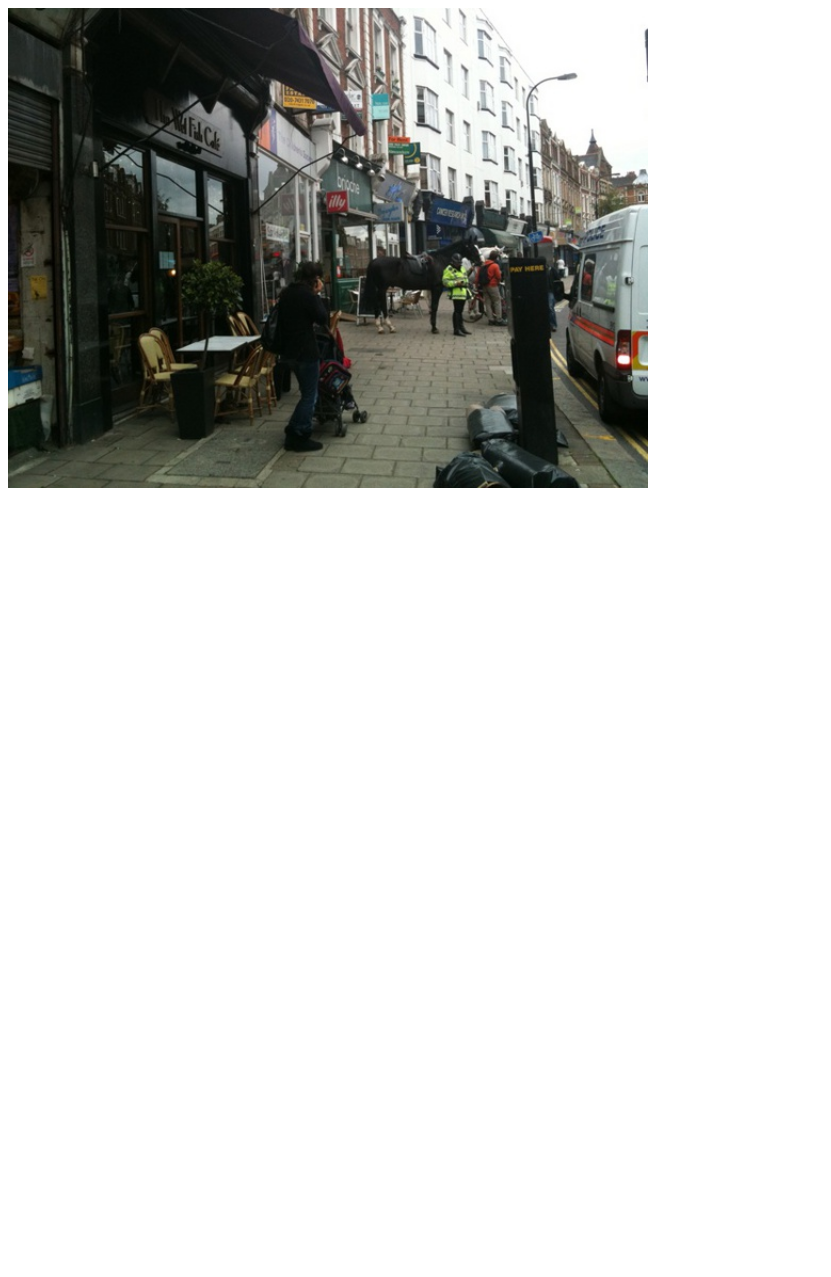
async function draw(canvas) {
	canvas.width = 831;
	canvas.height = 1277;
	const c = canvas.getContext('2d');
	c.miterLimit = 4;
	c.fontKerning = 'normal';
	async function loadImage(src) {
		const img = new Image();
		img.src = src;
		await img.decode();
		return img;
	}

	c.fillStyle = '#fff';
	c.fillRect(0, 0, 831, 1277);
	c.drawImage(await loadImage('img1.png'), 8, 8, 640, 480);
}

draw(document.querySelector('canvas'));
